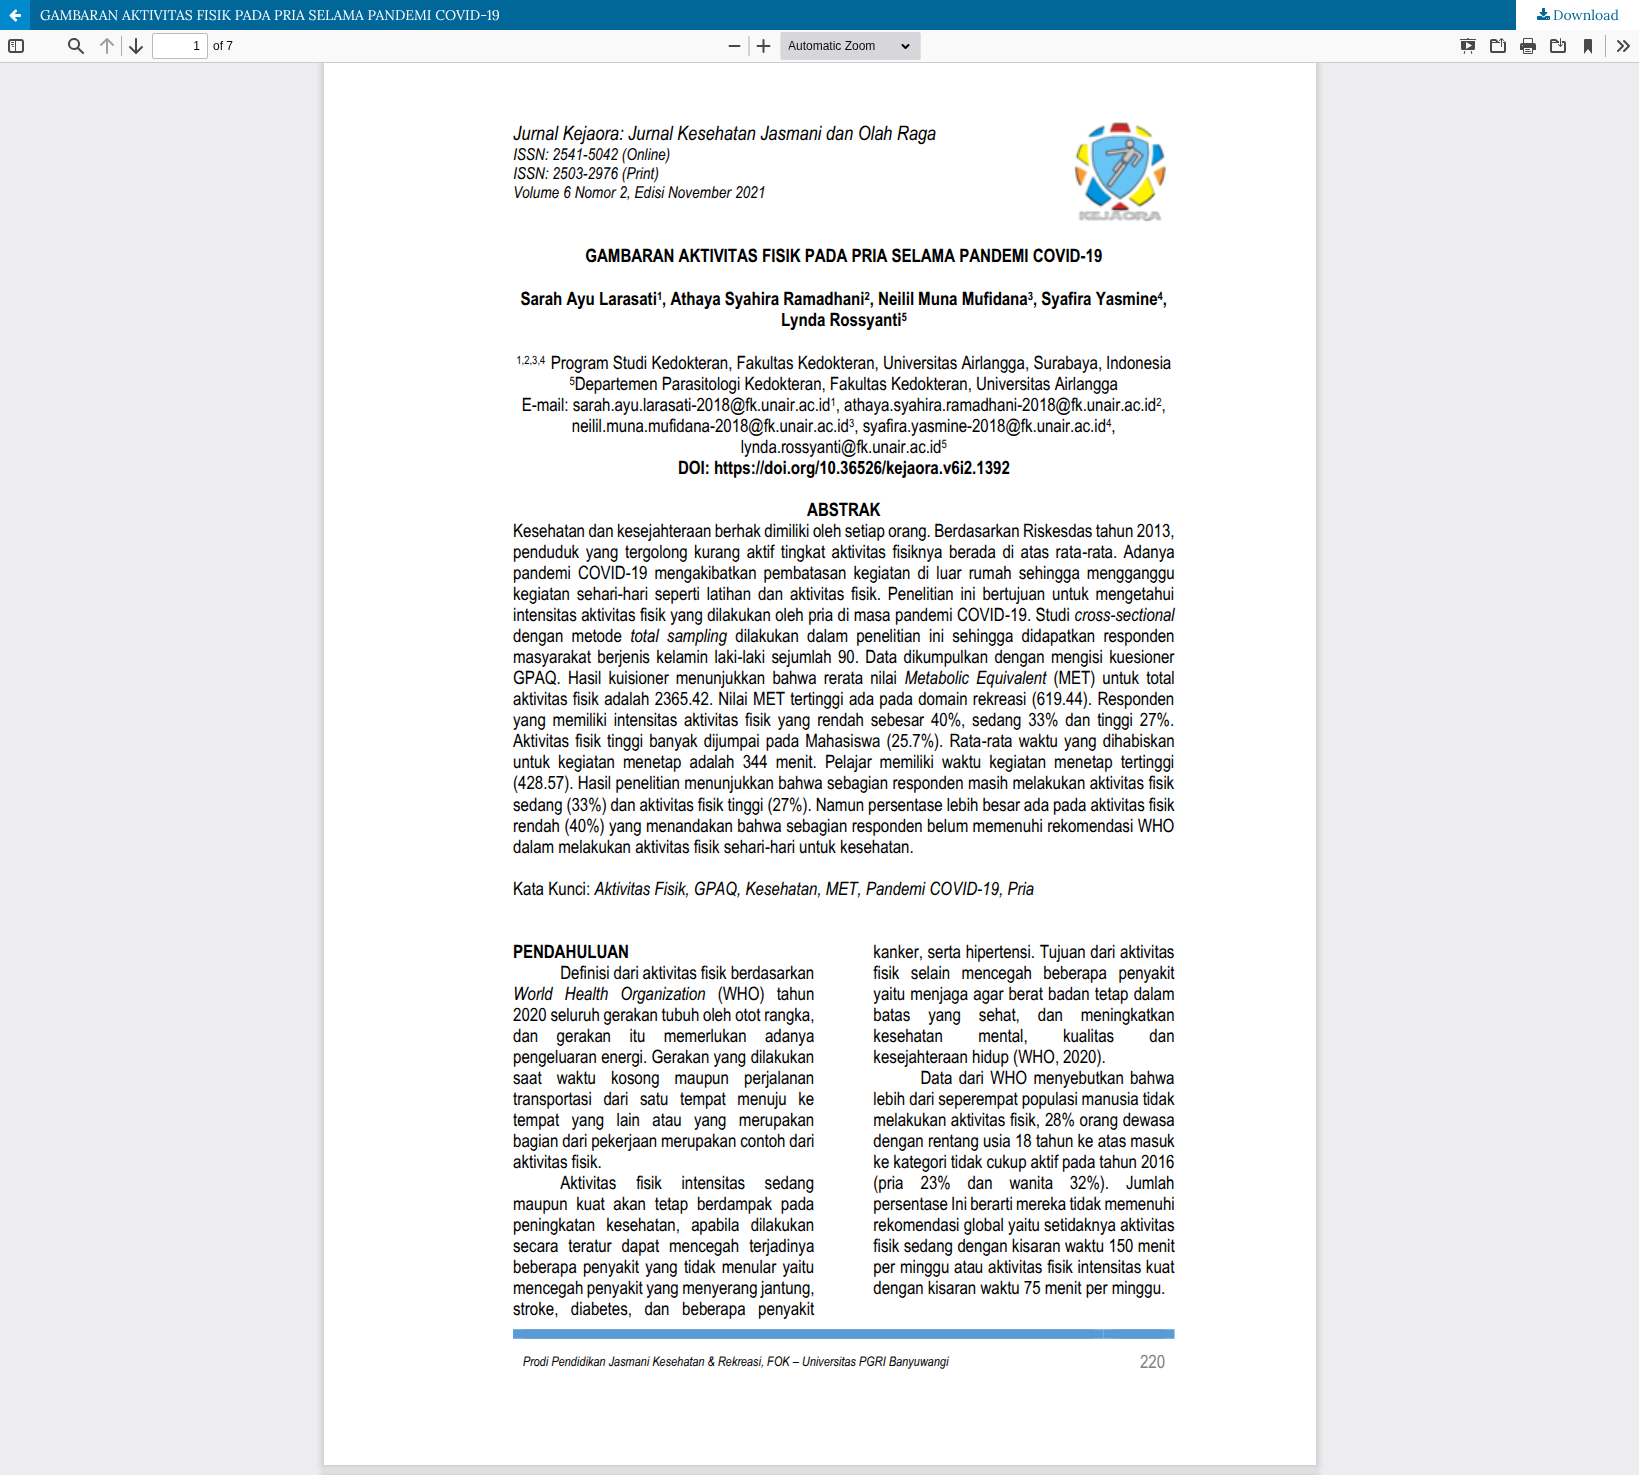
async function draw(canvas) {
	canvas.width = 1639;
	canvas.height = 1475;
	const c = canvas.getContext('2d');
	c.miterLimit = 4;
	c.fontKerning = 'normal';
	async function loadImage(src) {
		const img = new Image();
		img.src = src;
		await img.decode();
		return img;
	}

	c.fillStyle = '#fff';
	c.fillRect(0, 0, 1639, 1475);
	c.fillStyle = '#006798';
	c.fillRect(30, 0, 1486, 30);
	c.fillStyle = '#008acb';
	c.fillRect(0, 0, 30, 30);
	c.drawImage(await loadImage('img1.png'), 9, 9, 12, 13);
	c.font = '14px Lora';
	c.fillStyle = '#fff';
	c.fillText('GAMBARAN AKTIVITAS FISIK PADA PRIA SELAMA PANDEMI COVID-19', 40, 20);
	c.drawImage(await loadImage('img2.png'), 1537, 8, 13, 12);
	c.fillStyle = '#006798';
	c.fillText('Download', 1553, 20);
	c.drawImage(await loadImage('img3.png'), 0, 30, 1639, 1445);
}

draw(document.querySelector('canvas'));
